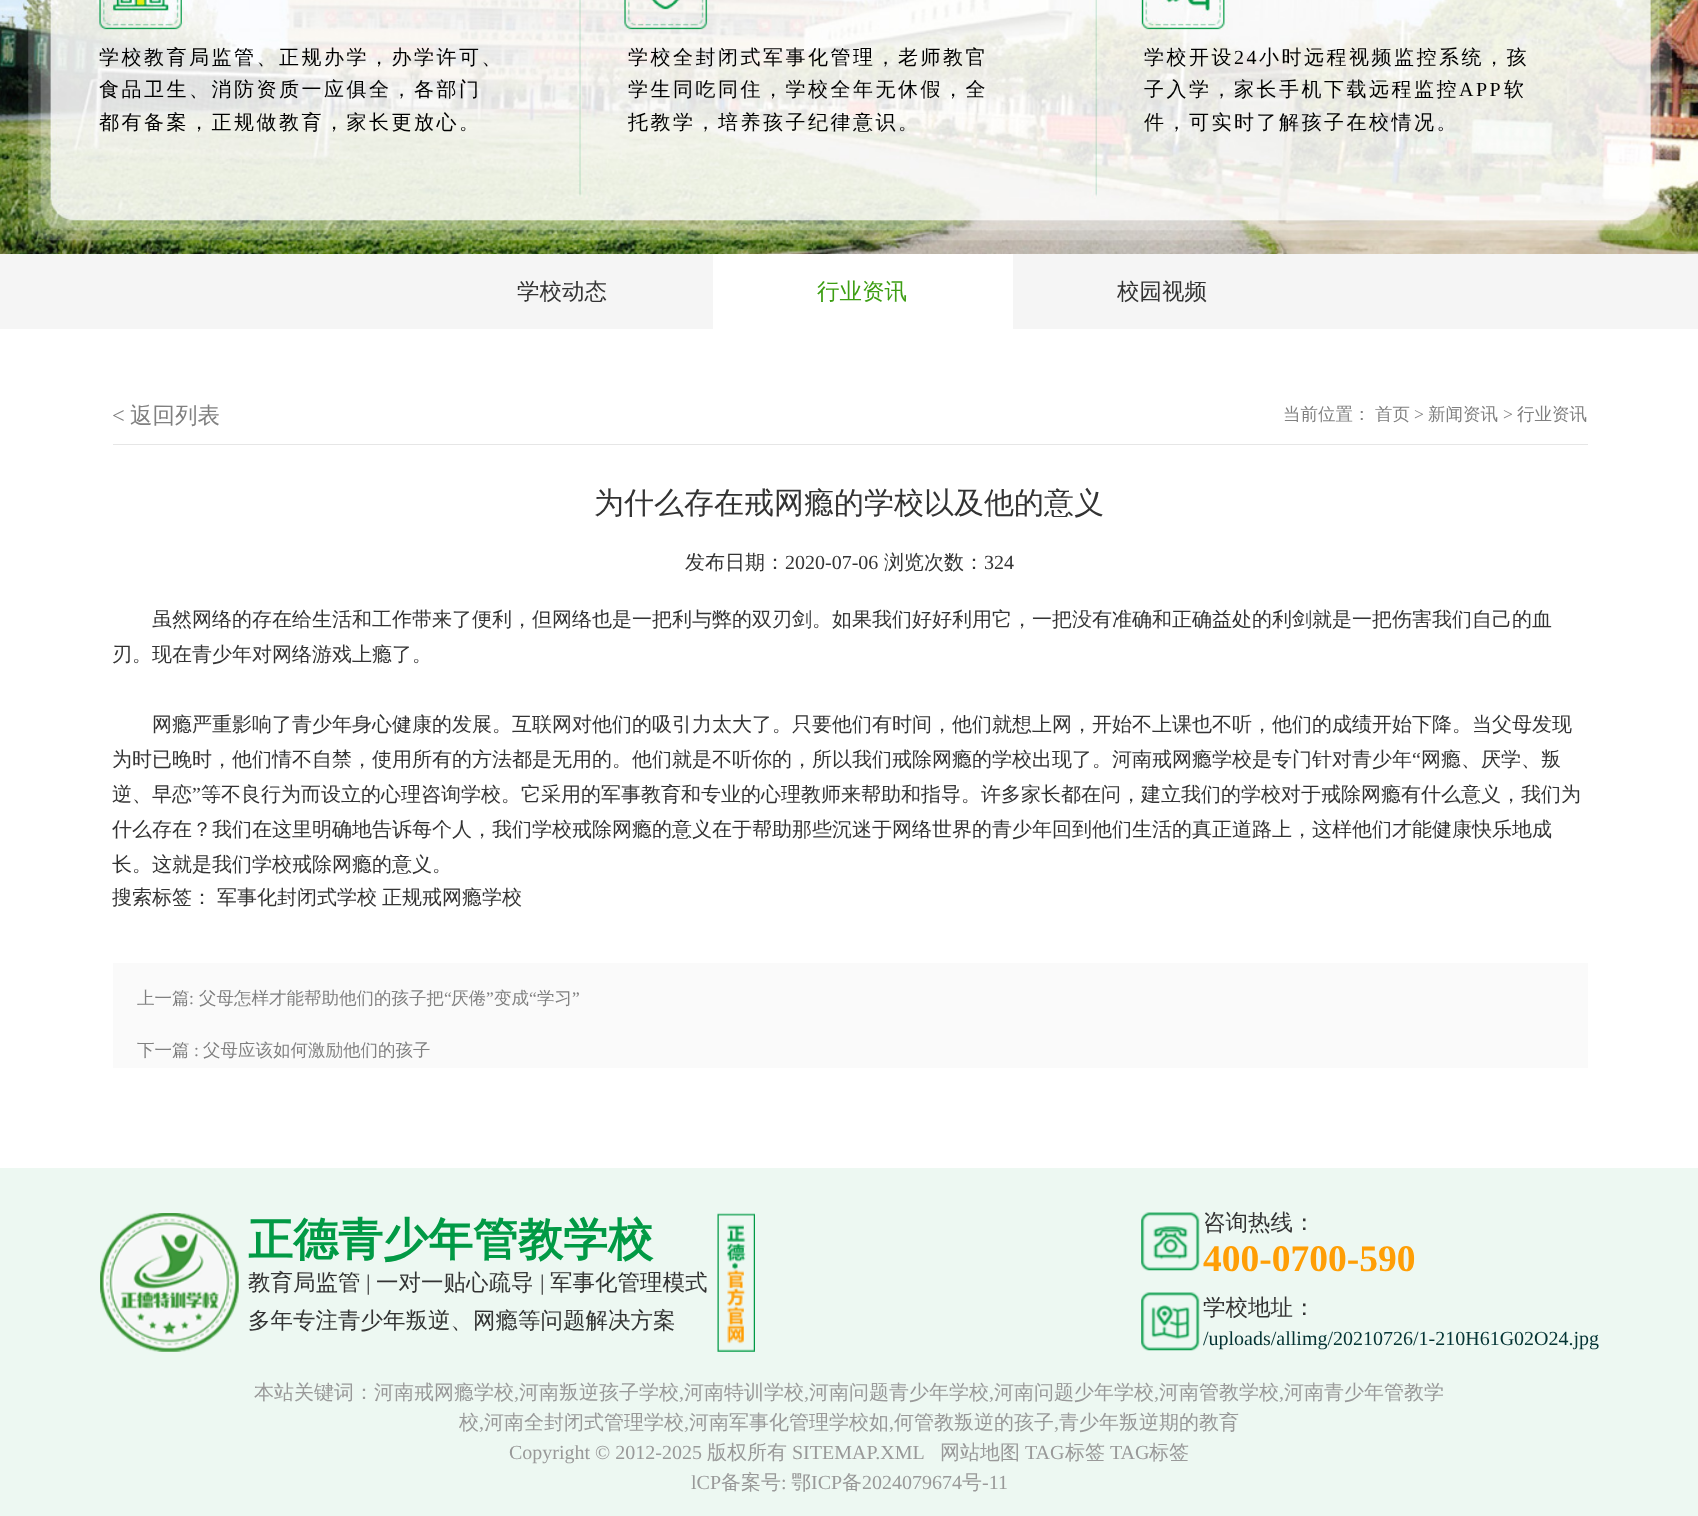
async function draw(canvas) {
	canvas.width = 1698;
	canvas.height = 1516;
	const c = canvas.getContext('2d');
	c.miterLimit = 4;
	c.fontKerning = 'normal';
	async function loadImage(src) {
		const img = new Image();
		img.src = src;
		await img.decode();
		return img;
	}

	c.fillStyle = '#fff';
	c.fillRect(0, 0, 1698, 1516);
	c.drawImage(await loadImage('img1.png'), 0, 0, 1698, 254);
	c.letterSpacing = '2.5px';
	c.font = '500 20px WenQuanYi Zen Hei';
	c.fillStyle = '#000';
	for (const [text, x, y] of [
		['学校教育局监管、正规办学，办学许可、', 99, 64],
		['食品卫生、消防资质一应俱全，各部门', 99, 96],
		['都有备案，正规做教育，家长更放心。', 99, 129],
		['学校全封闭式军事化管理，老师教官', 628, 64],
		['学生同吃同住，学校全年无休假，全', 628, 96],
		['托教学，培养孩子纪律意识。', 628, 129],
		['学校开设', 1144, 64],
	]) {
		c.fillText(text, x, y);
	}
	c.font = '20px Liberation Serif';
	c.fillText('24', 1234, 64);
	c.font = '500 20px WenQuanYi Zen Hei';
	c.fillText('小时远程视频监控系统，孩', 1259, 64);
	c.fillText('子入学，家长手机下载远程监控', 1144, 96);
	c.font = '20px Liberation Serif';
	c.fillText('APP', 1459, 96);
	c.font = '500 20px WenQuanYi Zen Hei';
	c.fillText('软', 1504, 96);
	c.fillText('件，可实时了解孩子在校情况。', 1144, 129);
	c.fillStyle = '#f5f5f5';
	c.fillRect(0, 254, 1698, 75);
	c.letterSpacing = '0px';
	c.font = '500 22.5px WenQuanYi Zen Hei';
	c.fillStyle = '#333';
	c.fillText('学校动态', 517, 299);
	c.fillStyle = '#fff';
	c.fillRect(713, 254, 300, 75);
	c.fillStyle = '#3d9e13';
	c.fillText('行业资讯', 817, 299);
	c.fillStyle = '#333';
	c.fillText('校园视频', 1117, 299);
	c.fillStyle = '#e6e6e6';
	c.fillRect(113, 444, 1475, 1);
	c.font = '22.5px Liberation Serif';
	c.fillStyle = '#808080';
	c.fillText('<', 112, 423);
	c.font = '500 22.5px WenQuanYi Zen Hei';
	c.fillText('返回列表', 130, 423);
	c.font = '500 17.5px WenQuanYi Zen Hei';
	c.fillText('当前位置：', 1283, 420);
	c.fillText('首页', 1375, 420);
	c.font = '17.5px Liberation Serif';
	c.fillText('>', 1414, 420);
	c.font = '500 17.5px WenQuanYi Zen Hei';
	c.fillText('新闻资讯', 1428, 420);
	c.font = '17.5px Liberation Serif';
	c.fillText('>', 1503, 420);
	c.font = '500 17.5px WenQuanYi Zen Hei';
	c.fillText('行业资讯', 1517, 420);
	c.font = '500 30px WenQuanYi Zen Hei';
	c.fillStyle = '#333';
	c.fillText('为什么存在戒网瘾的学校以及他的意义', 594, 513);
	c.font = '500 20px WenQuanYi Zen Hei';
	c.fillText('发布日期：', 685, 569);
	c.font = '20px Liberation Serif';
	c.fillText('2020-07-06', 785, 569);
	c.font = '500 20px WenQuanYi Zen Hei';
	c.fillText('浏览次数：', 884, 569);
	c.font = '20px Liberation Serif';
	c.fillText('324', 984, 569);
	c.font = '500 20px WenQuanYi Zen Hei';
	for (const [text, x, y] of [
		['虽然网络的存在给生活和工作带来了便利，但网络也是一把利与弊的双刃剑。如果我们好好利用它，一把没有准确和正确益处的利剑就是一把伤害我们自己的血', 152, 626],
		['刃。现在青少年对网络游戏上瘾了。', 112, 661],
		['网瘾严重影响了青少年身心健康的发展。互联网对他们的吸引力太大了。只要他们有时间，他们就想上网，开始不上课也不听，他们的成绩开始下降。当父母发现', 152, 731],
		['为时已晚时，他们情不自禁，使用所有的方法都是无用的。他们就是不听你的，所以我们戒除网瘾的学校出现了。河南戒网瘾学校是专门针对青少年', 112, 766],
	]) {
		c.fillText(text, x, y);
	}
	c.font = '20px Liberation Serif';
	c.fillText('“', 1412, 766);
	c.font = '500 20px WenQuanYi Zen Hei';
	c.fillText('网瘾、厌学、叛', 1421, 766);
	c.fillText('逆、早恋', 112, 801);
	c.font = '20px Liberation Serif';
	c.fillText('”', 192, 801);
	c.font = '500 20px WenQuanYi Zen Hei';
	for (const [text, x, y] of [
		['等不良行为而设立的心理咨询学校。它采用的军事教育和专业的心理教师来帮助和指导。许多家长都在问，建立我们的学校对于戒除网瘾有什么意义，我们为', 201, 801],
		['什么存在？我们在这里明确地告诉每个人，我们学校戒除网瘾的意义在于帮助那些沉迷于网络世界的青少年回到他们生活的真正道路上，这样他们才能健康快乐地成', 112, 836],
		['长。这就是我们学校戒除网瘾的意义。', 112, 871],
		['搜索标签：', 112, 904],
		['军事化封闭式学校', 217, 904],
		['正规戒网瘾学校', 382, 904],
	]) {
		c.fillText(text, x, y);
	}
	c.fillStyle = '#fafafa';
	c.fillRect(113, 963, 1475, 105);
	c.font = '500 17.5px WenQuanYi Zen Hei';
	c.fillStyle = '#808080';
	c.fillText('上一篇', 137, 1004);
	c.fillText('父母怎样才能帮助他们的孩子把', 199, 1004);
	c.font = '17.5px Liberation Serif';
	c.fillText('“', 444, 1004);
	c.font = '500 17.5px WenQuanYi Zen Hei';
	c.fillText('厌倦', 451, 1004);
	c.font = '17.5px Liberation Serif';
	c.fillText('”', 486, 1004);
	c.font = '500 17.5px WenQuanYi Zen Hei';
	c.fillText('变成', 494, 1004);
	c.font = '17.5px Liberation Serif';
	c.fillText('“', 529, 1004);
	c.font = '500 17.5px WenQuanYi Zen Hei';
	c.fillText('学习', 537, 1004);
	c.font = '17.5px Liberation Serif';
	c.fillText('”', 572, 1004);
	c.fillText(':', 189, 1004);
	c.font = '500 17.5px WenQuanYi Zen Hei';
	c.fillText('下一篇', 137, 1056);
	c.font = '17.5px Liberation Serif';
	c.fillText(':', 194, 1056);
	c.font = '500 17.5px WenQuanYi Zen Hei';
	c.fillText('父母应该如何激励他们的孩子', 203, 1056);
	c.fillStyle = '#edf8f2';
	c.fillRect(0, 1168, 1698, 348);
	c.drawImage(await loadImage('img2.png'), 100, 1213, 139, 139);
	c.font = 'bold 45px WenQuanYi Zen Hei';
	c.fillStyle = '#019a45';
	c.fillText('正德青少年管教学校', 248, 1255);
	c.font = '500 22.5px WenQuanYi Zen Hei';
	c.fillStyle = '#333';
	c.fillText('教育局监管', 248, 1290);
	c.font = '22.5px Liberation Serif';
	c.fillText('|', 366, 1290);
	c.font = '500 22.5px WenQuanYi Zen Hei';
	c.fillText('一对一贴心疏导', 376, 1290);
	c.font = '22.5px Liberation Serif';
	c.fillText('|', 540, 1290);
	c.font = '500 22.5px WenQuanYi Zen Hei';
	c.fillText('军事化管理模式', 550, 1290);
	c.fillText('多年专注青少年叛逆、网瘾等问题解决方案', 248, 1328);
	c.drawImage(await loadImage('img3.png'), 717, 1213, 38, 139);
	c.drawImage(await loadImage('img4.png'), 1141, 1212, 59, 59);
	c.fillText('咨询热线：', 1203, 1230);
	c.font = 'bold 37.5px Liberation Serif';
	c.fillStyle = '#ff9e05';
	c.fillText('400-0700-590', 1203, 1271);
	c.drawImage(await loadImage('img5.png'), 1141, 1292, 59, 59);
	c.font = '500 22.5px WenQuanYi Zen Hei';
	c.fillStyle = '#333';
	c.fillText('学校地址：', 1203, 1315);
	c.font = '20px Liberation Serif';
	c.fillStyle = '#033333';
	c.fillText('/uploads/allimg/20210726/1-210H61G02O24.jpg', 1203, 1345);
	c.font = '500 20px WenQuanYi Zen Hei';
	c.fillStyle = '#999';
	c.fillText('本站关键词：河南戒网瘾学校', 254, 1399);
	c.font = '20px Liberation Serif';
	c.fillText(',', 514, 1399);
	c.font = '500 20px WenQuanYi Zen Hei';
	c.fillText('河南叛逆孩子学校', 519, 1399);
	c.font = '20px Liberation Serif';
	c.fillText(',', 679, 1399);
	c.font = '500 20px WenQuanYi Zen Hei';
	c.fillText('河南特训学校', 684, 1399);
	c.font = '20px Liberation Serif';
	c.fillText(',', 804, 1399);
	c.font = '500 20px WenQuanYi Zen Hei';
	c.fillText('河南问题青少年学校', 809, 1399);
	c.font = '20px Liberation Serif';
	c.fillText(',', 989, 1399);
	c.font = '500 20px WenQuanYi Zen Hei';
	c.fillText('河南问题少年学校', 994, 1399);
	c.font = '20px Liberation Serif';
	c.fillText(',', 1154, 1399);
	c.font = '500 20px WenQuanYi Zen Hei';
	c.fillText('河南管教学校', 1159, 1399);
	c.font = '20px Liberation Serif';
	c.fillText(',', 1279, 1399);
	c.font = '500 20px WenQuanYi Zen Hei';
	c.fillText('河南青少年管教学', 1284, 1399);
	c.fillText('校', 459, 1429);
	c.font = '20px Liberation Serif';
	c.fillText(',', 479, 1429);
	c.font = '500 20px WenQuanYi Zen Hei';
	c.fillText('河南全封闭式管理学校', 484, 1429);
	c.font = '20px Liberation Serif';
	c.fillText(',', 684, 1429);
	c.font = '500 20px WenQuanYi Zen Hei';
	c.fillText('河南军事化管理学校如', 689, 1429);
	c.font = '20px Liberation Serif';
	c.fillText(',', 889, 1429);
	c.font = '500 20px WenQuanYi Zen Hei';
	c.fillText('何管教叛逆的孩子', 894, 1429);
	c.font = '20px Liberation Serif';
	c.fillText(',', 1054, 1429);
	c.font = '500 20px WenQuanYi Zen Hei';
	c.fillText('青少年叛逆期的教育', 1059, 1429);
	c.font = '20px Liberation Serif';
	c.fillText('Copyright © 2012-2025', 509, 1459);
	c.font = '500 20px WenQuanYi Zen Hei';
	c.fillText('版权所有', 707, 1459);
	c.font = '20px Liberation Serif';
	c.fillText('SITEMAP.XML', 792, 1459);
	c.font = '500 20px WenQuanYi Zen Hei';
	c.fillText('网站地图', 940, 1459);
	c.font = '20px Liberation Serif';
	c.fillText('TAG', 1025, 1459);
	c.font = '500 20px WenQuanYi Zen Hei';
	c.fillText('标签', 1065, 1459);
	c.font = '20px Liberation Serif';
	c.fillText('TAG', 1110, 1459);
	c.font = '500 20px WenQuanYi Zen Hei';
	c.fillText('标签', 1149, 1459);
	c.font = '20px Liberation Serif';
	c.fillText('lCP', 691, 1489);
	c.font = '500 20px WenQuanYi Zen Hei';
	c.fillText('备案号', 721, 1489);
	c.font = '20px Liberation Serif';
	c.fillText(':', 781, 1489);
	c.font = '500 20px WenQuanYi Zen Hei';
	c.fillText('鄂', 791, 1489);
	c.font = '20px Liberation Serif';
	c.fillText('ICP', 811, 1489);
	c.font = '500 20px WenQuanYi Zen Hei';
	c.fillText('备', 842, 1489);
	c.font = '20px Liberation Serif';
	c.fillText('2024079674', 862, 1489);
	c.font = '500 20px WenQuanYi Zen Hei';
	c.fillText('号', 962, 1489);
	c.font = '20px Liberation Serif';
	c.fillText('-11', 982, 1489);
}

draw(document.querySelector('canvas'));
